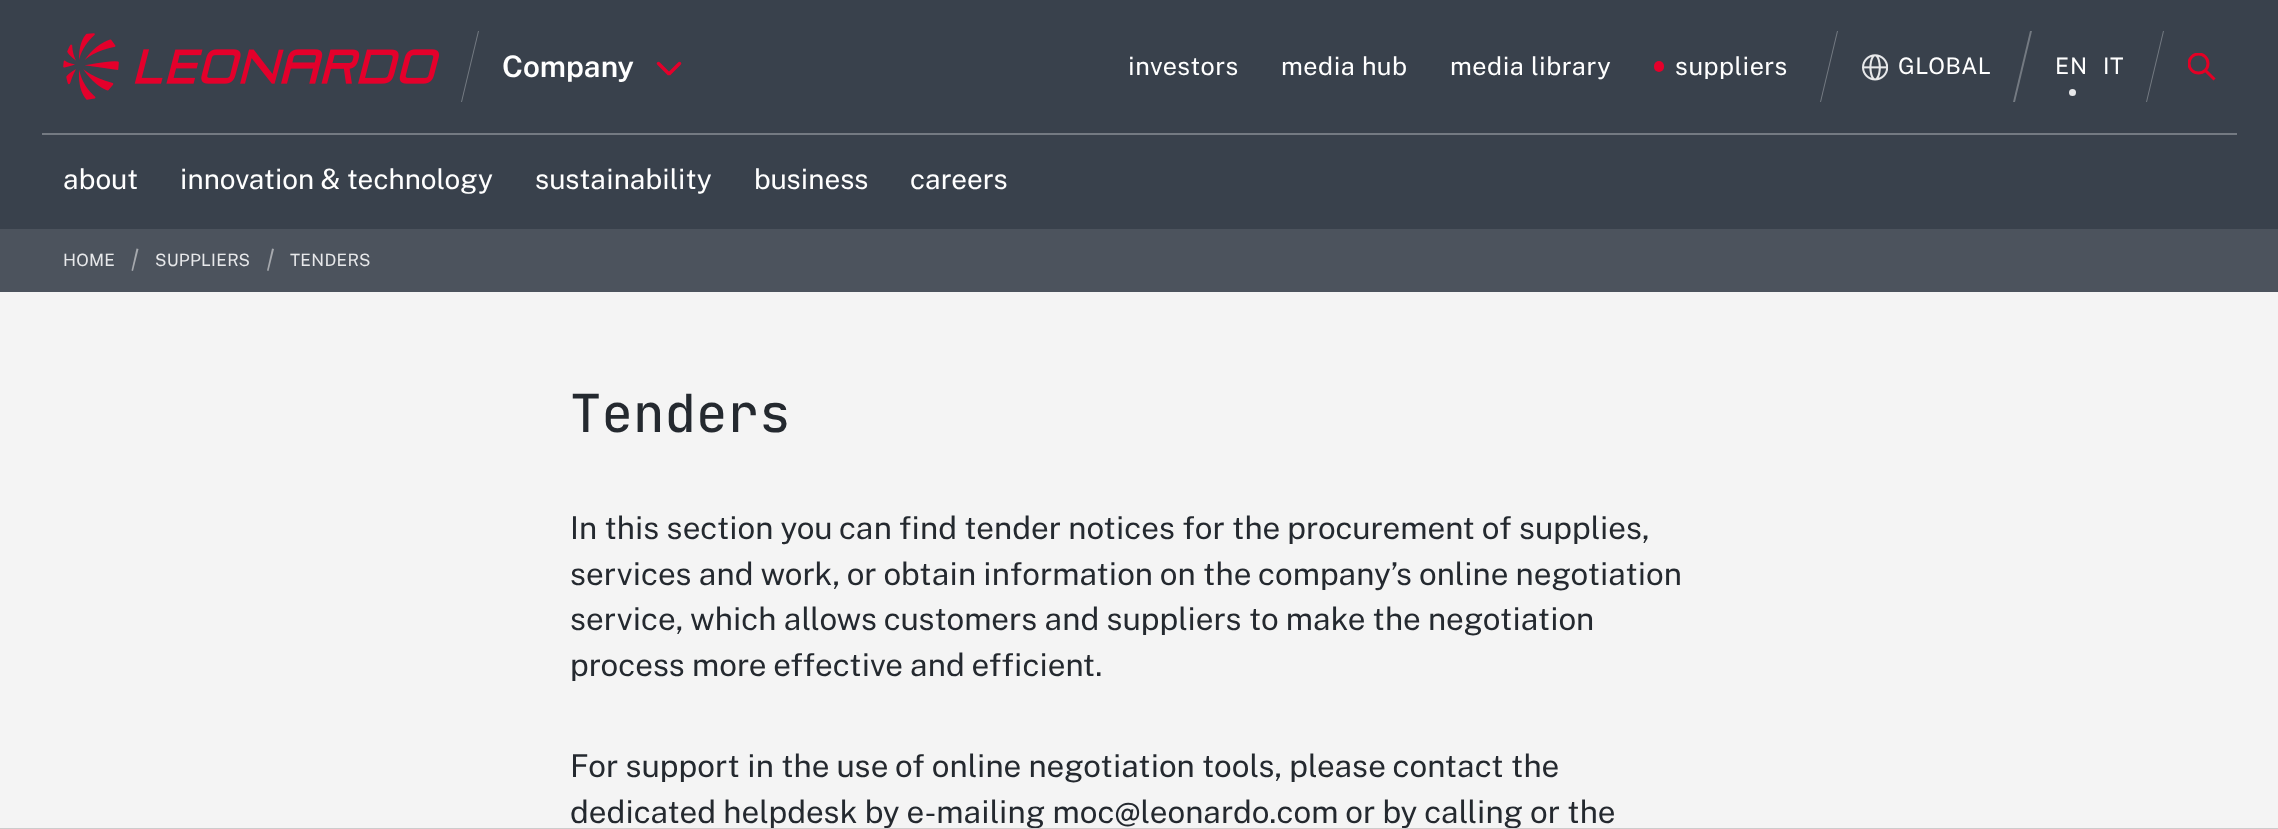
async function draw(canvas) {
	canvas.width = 2278;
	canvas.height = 829;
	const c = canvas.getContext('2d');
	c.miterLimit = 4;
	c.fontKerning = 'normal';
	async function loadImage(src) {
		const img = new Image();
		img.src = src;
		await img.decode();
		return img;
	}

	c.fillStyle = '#39414c';
	c.fillRect(0, 0, 2278, 829);
	c.drawImage(await loadImage('img1.png'), 63, 33, 376, 67);
	c.fillStyle = '#747a82';
	c.beginPath();
	c.moveTo(478, 31);
	c.lineTo(479, 31);
	c.lineTo(462, 102);
	c.lineTo(461, 102);
	c.closePath();
	c.fill();
	c.font = '100 29.75px "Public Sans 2"';
	c.fillStyle = '#fff';
	c.fillText('Company', 502, 77);
	c.beginPath();
	c.moveTo(658.5, 63.5);
	c.lineTo(669, 74);
	c.lineTo(679.5, 63.5);
	c.strokeStyle = '#e4002b';
	c.lineWidth = 3.5;
	c.lineCap = 'round';
	c.lineJoin = 'bevel';
	c.stroke();
	c.letterSpacing = '0.5px';
	c.font = '100 25.25px Public Sans';
	for (const [text, x, y] of [
		['investors', 1128, 75],
		['media hub', 1281, 75],
		['media library', 1450, 75],
	]) {
		c.fillText(text, x, y);
	}
	c.fillStyle = '#e4002b';
	c.beginPath();
	c.roundRect(1654, 61, 10, 11, 5);
	c.fill();
	c.fillStyle = '#fff';
	c.fillText('suppliers', 1675, 75);
	c.fillStyle = '#747a82';
	c.beginPath();
	c.moveTo(1837, 31);
	c.lineTo(1838, 31);
	c.lineTo(1821, 102);
	c.lineTo(1820, 102);
	c.closePath();
	c.fill();
	c.drawImage(await loadImage('img2.png'), 1862, 54, 26, 27);
	c.font = '100 22.75px Public Sans';
	c.fillStyle = '#fff';
	c.fillText('GLOBAL', 1898, 74);
	c.fillStyle = '#747a82';
	c.beginPath();
	c.moveTo(2030, 31);
	c.lineTo(2032, 31);
	c.lineTo(2015, 102);
	c.lineTo(2013, 102);
	c.closePath();
	c.fill();
	c.fillStyle = '#fff';
	c.fillText('EN', 2055, 74);
	c.fillStyle = '#e7e8ea';
	c.beginPath();
	c.arc(2072.5, 92.5, 3.5, 0, 2 * Math.PI);
	c.fill();
	c.fillStyle = '#fff';
	c.fillText('IT', 2103, 74);
	c.fillStyle = '#747a82';
	c.beginPath();
	c.moveTo(2163, 31);
	c.lineTo(2164, 31);
	c.lineTo(2147, 102);
	c.lineTo(2146, 102);
	c.closePath();
	c.fill();
	c.save();
	c.beginPath();
	c.rect(2188, 53, 28, 28);
	c.clip();
	c.beginPath();
	c.arc(2198.5, 63.5, 9.5, 0, 2 * Math.PI);
	c.strokeStyle = '#e40025';
	c.lineWidth = 3;
	c.stroke();
	c.restore();
	c.beginPath();
	c.moveTo(2206.5, 71.5);
	c.lineTo(2213.5, 78.5);
	c.strokeStyle = '#e40025';
	c.lineWidth = 3;
	c.lineCap = 'square';
	c.lineJoin = 'miter';
	c.stroke();
	c.fillRect(42, 133, 2195, 2);
	c.letterSpacing = '0px';
	c.font = '100 28px Public Sans';
	c.fillStyle = '#fff';
	for (const [text, x, y] of [
		['about', 63, 189],
		['innovation & technology', 180, 189],
		['sustainability', 535, 189],
		['business', 754, 189],
		['careers', 910, 189],
	]) {
		c.fillText(text, x, y);
	}
	c.fillStyle = '#4c535d';
	c.fillRect(0, 229, 2278, 63);
	c.letterSpacing = '0.25px';
	c.font = '100 17px Public Sans';
	c.fillStyle = '#e7e8ea';
	c.fillText('HOME', 63, 266);
	c.fillStyle = '#a6a9ae';
	c.beginPath();
	c.moveTo(136.5, 248.5);
	c.lineTo(138.5, 249);
	c.lineTo(133, 271);
	c.lineTo(131.5, 270.5);
	c.closePath();
	c.fill();
	c.fillStyle = '#e7e8ea';
	c.fillText('SUPPLIERS', 155, 266);
	c.fillStyle = '#a6a9ae';
	c.beginPath();
	c.moveTo(272, 248.5);
	c.lineTo(274, 249);
	c.lineTo(268.5, 271);
	c.lineTo(267, 270.5);
	c.closePath();
	c.fill();
	c.fillStyle = '#e7e8ea';
	c.fillText('TENDERS', 290, 266);
	c.fillStyle = '#f4f4f4';
	c.fillRect(0, 292, 2278, 536);
	c.letterSpacing = '0px';
	c.font = '500 52.5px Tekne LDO';
	c.fillStyle = '#24292f';
	c.fillText('Tenders', 570, 432);
	c.font = '100 31.5px Public Sans';
	for (const [text, x, y] of [
		['In this section you can find tender notices for the procurement of supplies,', 570, 539],
		['services and work, or obtain information on the company’s online negotiation', 570, 585],
		['service, which allows customers and suppliers to make the negotiation', 570, 630],
		['process more effective and efficient.', 570, 676],
		['For support in the use of online negotiation tools, please contact the', 570, 777],
		['dedicated helpdesk by e-mailing moc@leonardo.com or by calling or the', 570, 823],
	]) {
		c.fillText(text, x, y);
	}
	c.fillStyle = '#ccc';
	c.fillRect(0, 828, 2278, 1);
}

draw(document.querySelector('canvas'));
